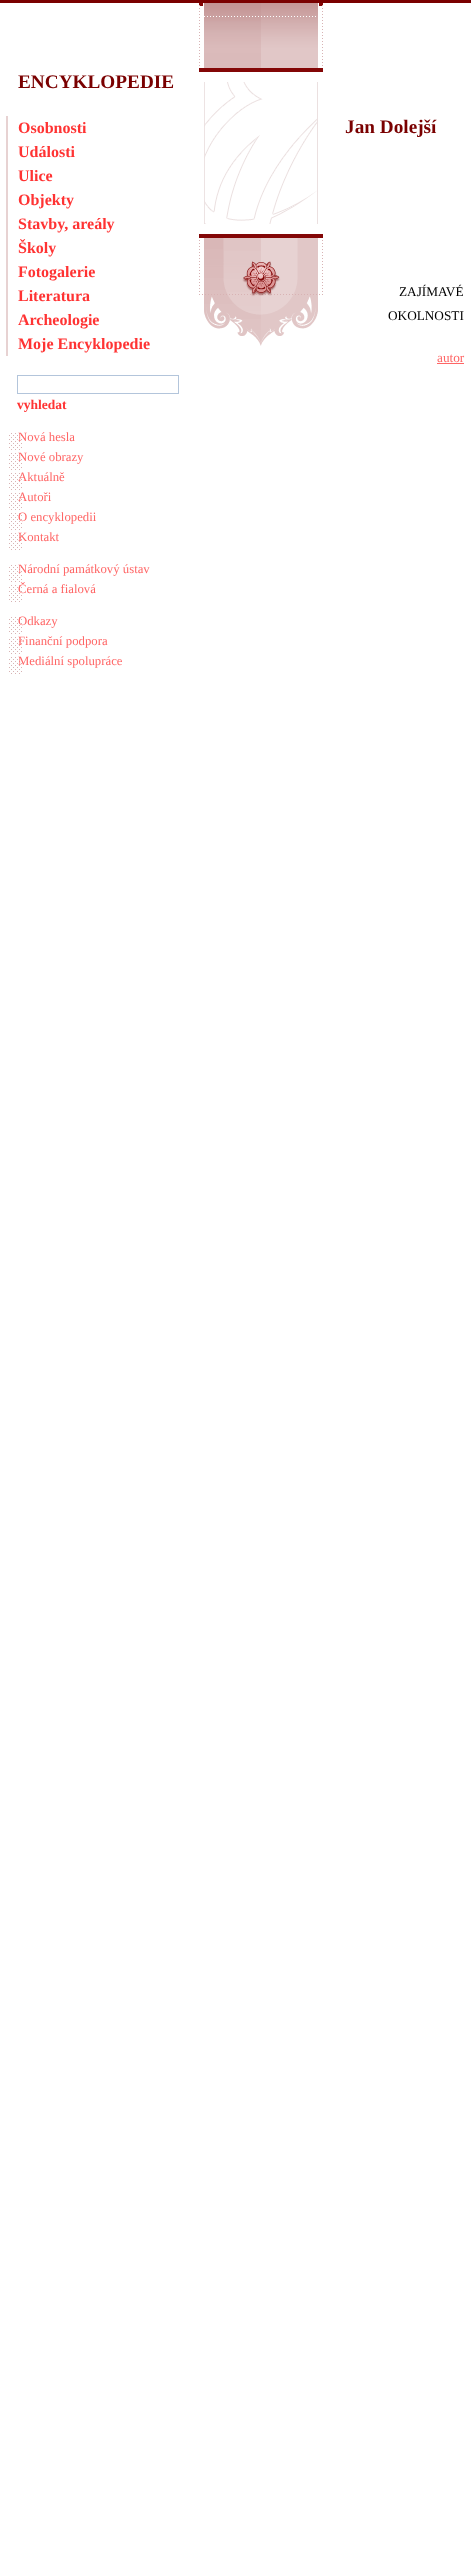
async function draw(canvas) {
	canvas.width = 471;
	canvas.height = 2549;
	const c = canvas.getContext('2d');
	c.miterLimit = 4;
	c.fontKerning = 'normal';
	async function loadImage(src) {
		const img = new Image();
		img.src = src;
		await img.decode();
		return img;
	}

	c.fillStyle = '#fff';
	c.fillRect(0, 0, 471, 2549);
	c.fillStyle = '#7a0000';
	c.fillRect(0, 0, 471, 3);
	c.drawImage(await loadImage('img1.png'), 199, 3, 124, 69);
	c.drawImage(await loadImage('img2.png'), 204, 82, 114, 142);
	c.drawImage(await loadImage('img3.png'), 199, 234, 124, 112);
	c.font = 'bold 19.25px Liberation Serif';
	c.fillText('ENCYKLOPEDIE', 18, 88);
	c.fillStyle = '#e7d2d2';
	c.fillRect(6, 116, 2, 240);
	c.font = 'bold 16px Liberation Serif';
	c.fillStyle = '#f33';
	for (const [text, x, y] of [
		['Osobnosti', 18, 133],
		['Události', 18, 157],
		['Ulice', 18, 181],
		['Objekty', 18, 205],
		['Stavby, areály', 18, 229],
		['Školy', 18, 253],
		['Fotogalerie', 18, 277],
		['Literatura', 18, 301],
		['Archeologie', 18, 325],
		['Moje Encyklopedie', 18, 349],
	]) {
		c.fillText(text, x, y);
	}
	c.strokeStyle = '#b3c5db';
	c.strokeRect(17.5, 375.5, 161, 18);
	c.font = 'bold 13.5px Liberation Serif';
	c.fillText('vyhledat', 17, 409);
	c.drawImage(await loadImage('img4.png'), 9, 433, 13, 17);
	c.font = '12.75px Liberation Serif';
	c.fillStyle = '#f66';
	c.fillText('Nová hesla', 18, 441);
	c.drawImage(await loadImage('img4.png'), 9, 453, 13, 17);
	c.fillText('Nové obrazy', 18, 461);
	c.drawImage(await loadImage('img4.png'), 9, 473, 13, 17);
	c.fillText('Aktuálně', 18, 481);
	c.drawImage(await loadImage('img4.png'), 9, 493, 13, 17);
	c.fillText('Autoři', 18, 501);
	c.drawImage(await loadImage('img4.png'), 9, 513, 13, 17);
	c.fillText('O encyklopedii', 18, 521);
	c.drawImage(await loadImage('img4.png'), 9, 533, 13, 17);
	c.fillText('Kontakt', 18, 541);
	c.drawImage(await loadImage('img4.png'), 9, 565, 13, 17);
	c.fillText('Národní památkový ústav', 18, 573);
	c.drawImage(await loadImage('img4.png'), 9, 585, 13, 17);
	c.fillText('Černá a fialová', 18, 593);
	c.drawImage(await loadImage('img4.png'), 9, 617, 13, 17);
	c.fillText('Odkazy', 18, 625);
	c.drawImage(await loadImage('img4.png'), 9, 637, 13, 17);
	c.fillText('Finanční podpora', 18, 645);
	c.drawImage(await loadImage('img4.png'), 9, 657, 13, 17);
	c.fillText('Mediální spolupráce', 18, 665);
	c.font = 'bold 19.25px Liberation Serif';
	c.fillStyle = '#7a0000';
	c.fillText('Jan Dolejší', 345, 133);
	c.font = '13.25px Liberation Serif';
	c.fillStyle = '#000';
	c.fillText('ZAJÍMAVÉ', 399, 296);
	c.fillText('OKOLNOSTI', 388, 320);
	c.fillStyle = '#f66';
	c.fillText('autor', 437, 362);
	c.fillRect(437, 363, 27, 1);
}

draw(document.querySelector('canvas'));
